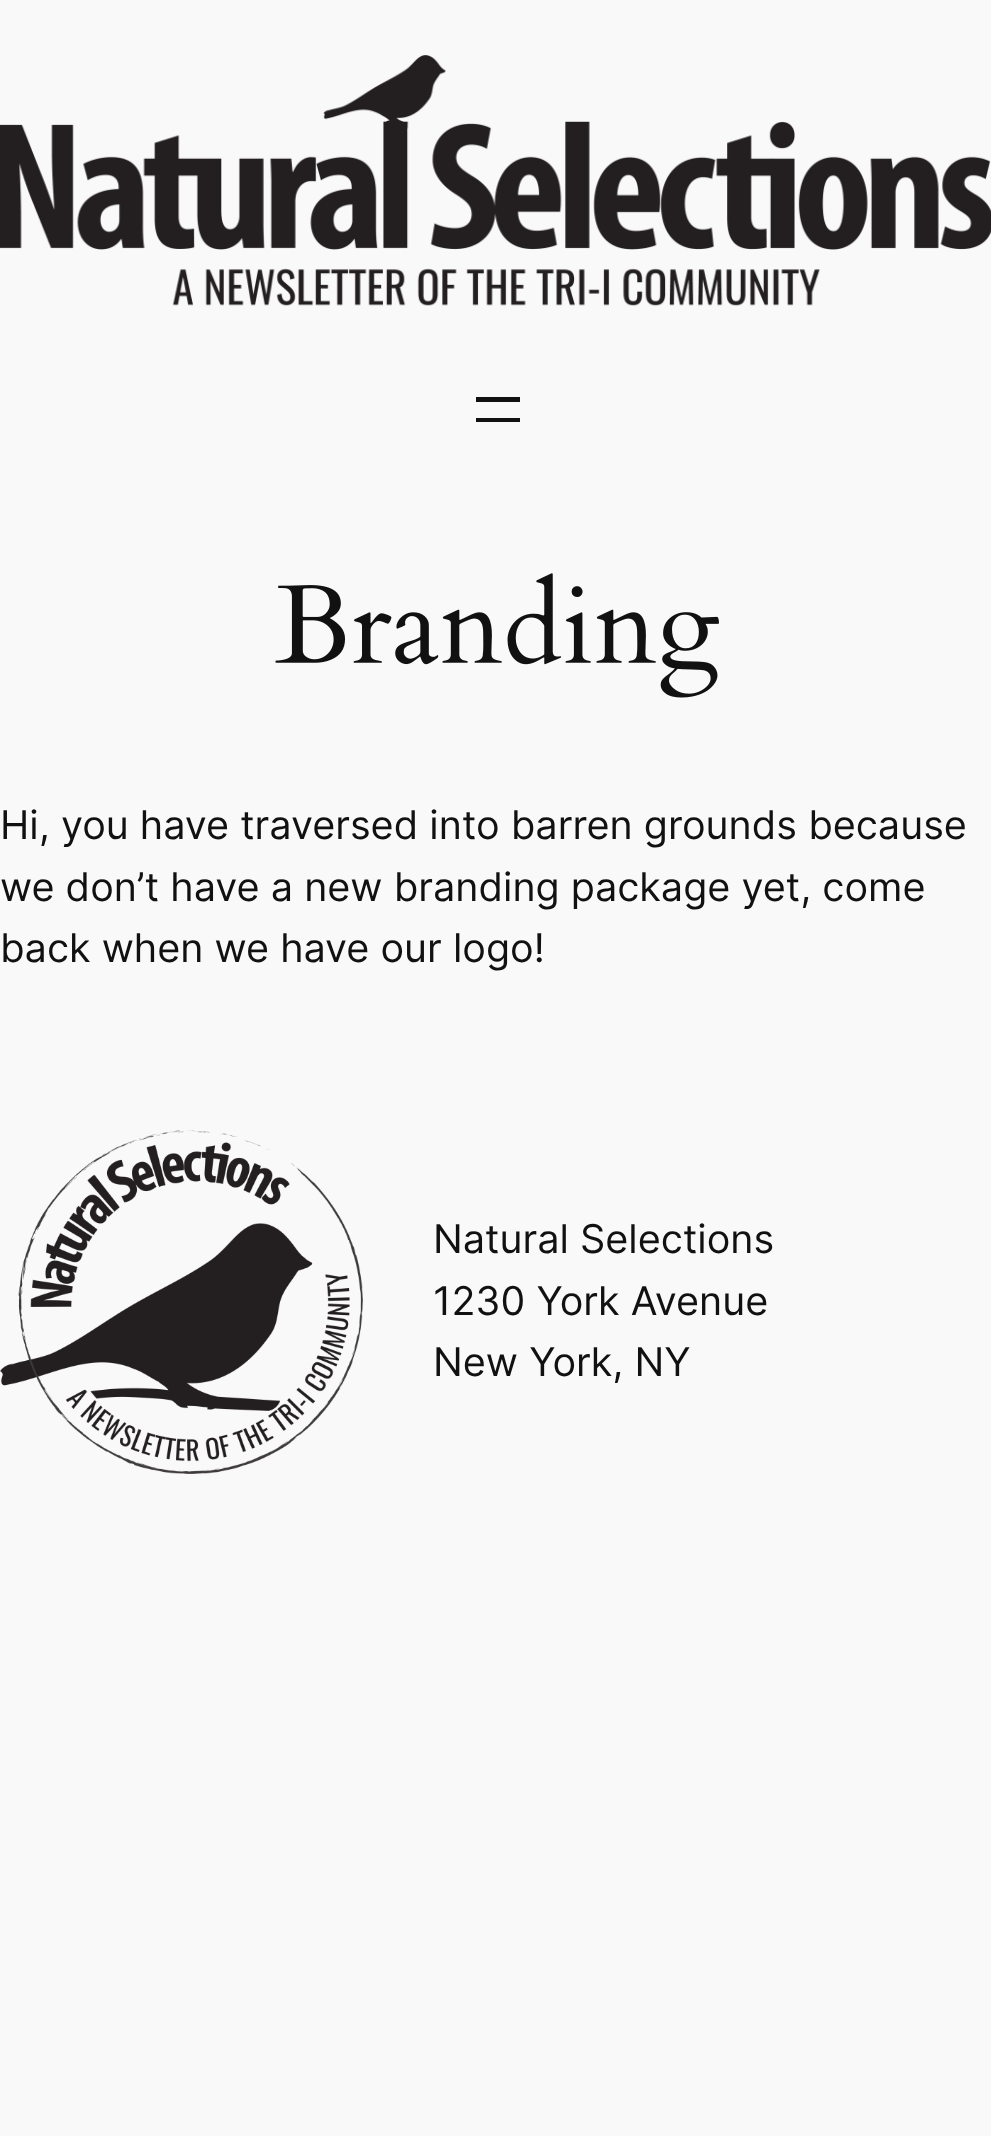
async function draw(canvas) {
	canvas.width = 991;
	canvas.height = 2136;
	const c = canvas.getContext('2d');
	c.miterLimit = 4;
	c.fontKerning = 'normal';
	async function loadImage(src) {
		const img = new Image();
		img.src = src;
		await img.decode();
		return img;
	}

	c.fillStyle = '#f9f9f9';
	c.fillRect(0, 0, 991, 2136);
	c.drawImage(await loadImage('img1.png'), 0, 55, 991, 251);
	c.fillStyle = '#111';
	c.fillRect(476, 397, 44, 5);
	c.fillRect(476, 418, 44, 4);
	c.drawImage(await loadImage('img2.png'), 275, 573, 444, 125);
	c.font = '39.6px Inter';
	for (const [text, x, y] of [
		['Hi, you have traversed into barren grounds because', 0, 839],
		['we don’t have a new branding package yet, come', 0, 901],
		['back when we have our logo!', 0, 962],
	]) {
		c.fillText(text, x, y);
	}
	c.drawImage(await loadImage('img3.png'), 0, 1130, 363, 344);
	for (const [text, x, y] of [
		['Natural Selections', 433, 1253],
		['1230 York Avenue', 433, 1315],
		['New York, NY', 433, 1376],
	]) {
		c.fillText(text, x, y);
	}
}

draw(document.querySelector('canvas'));
